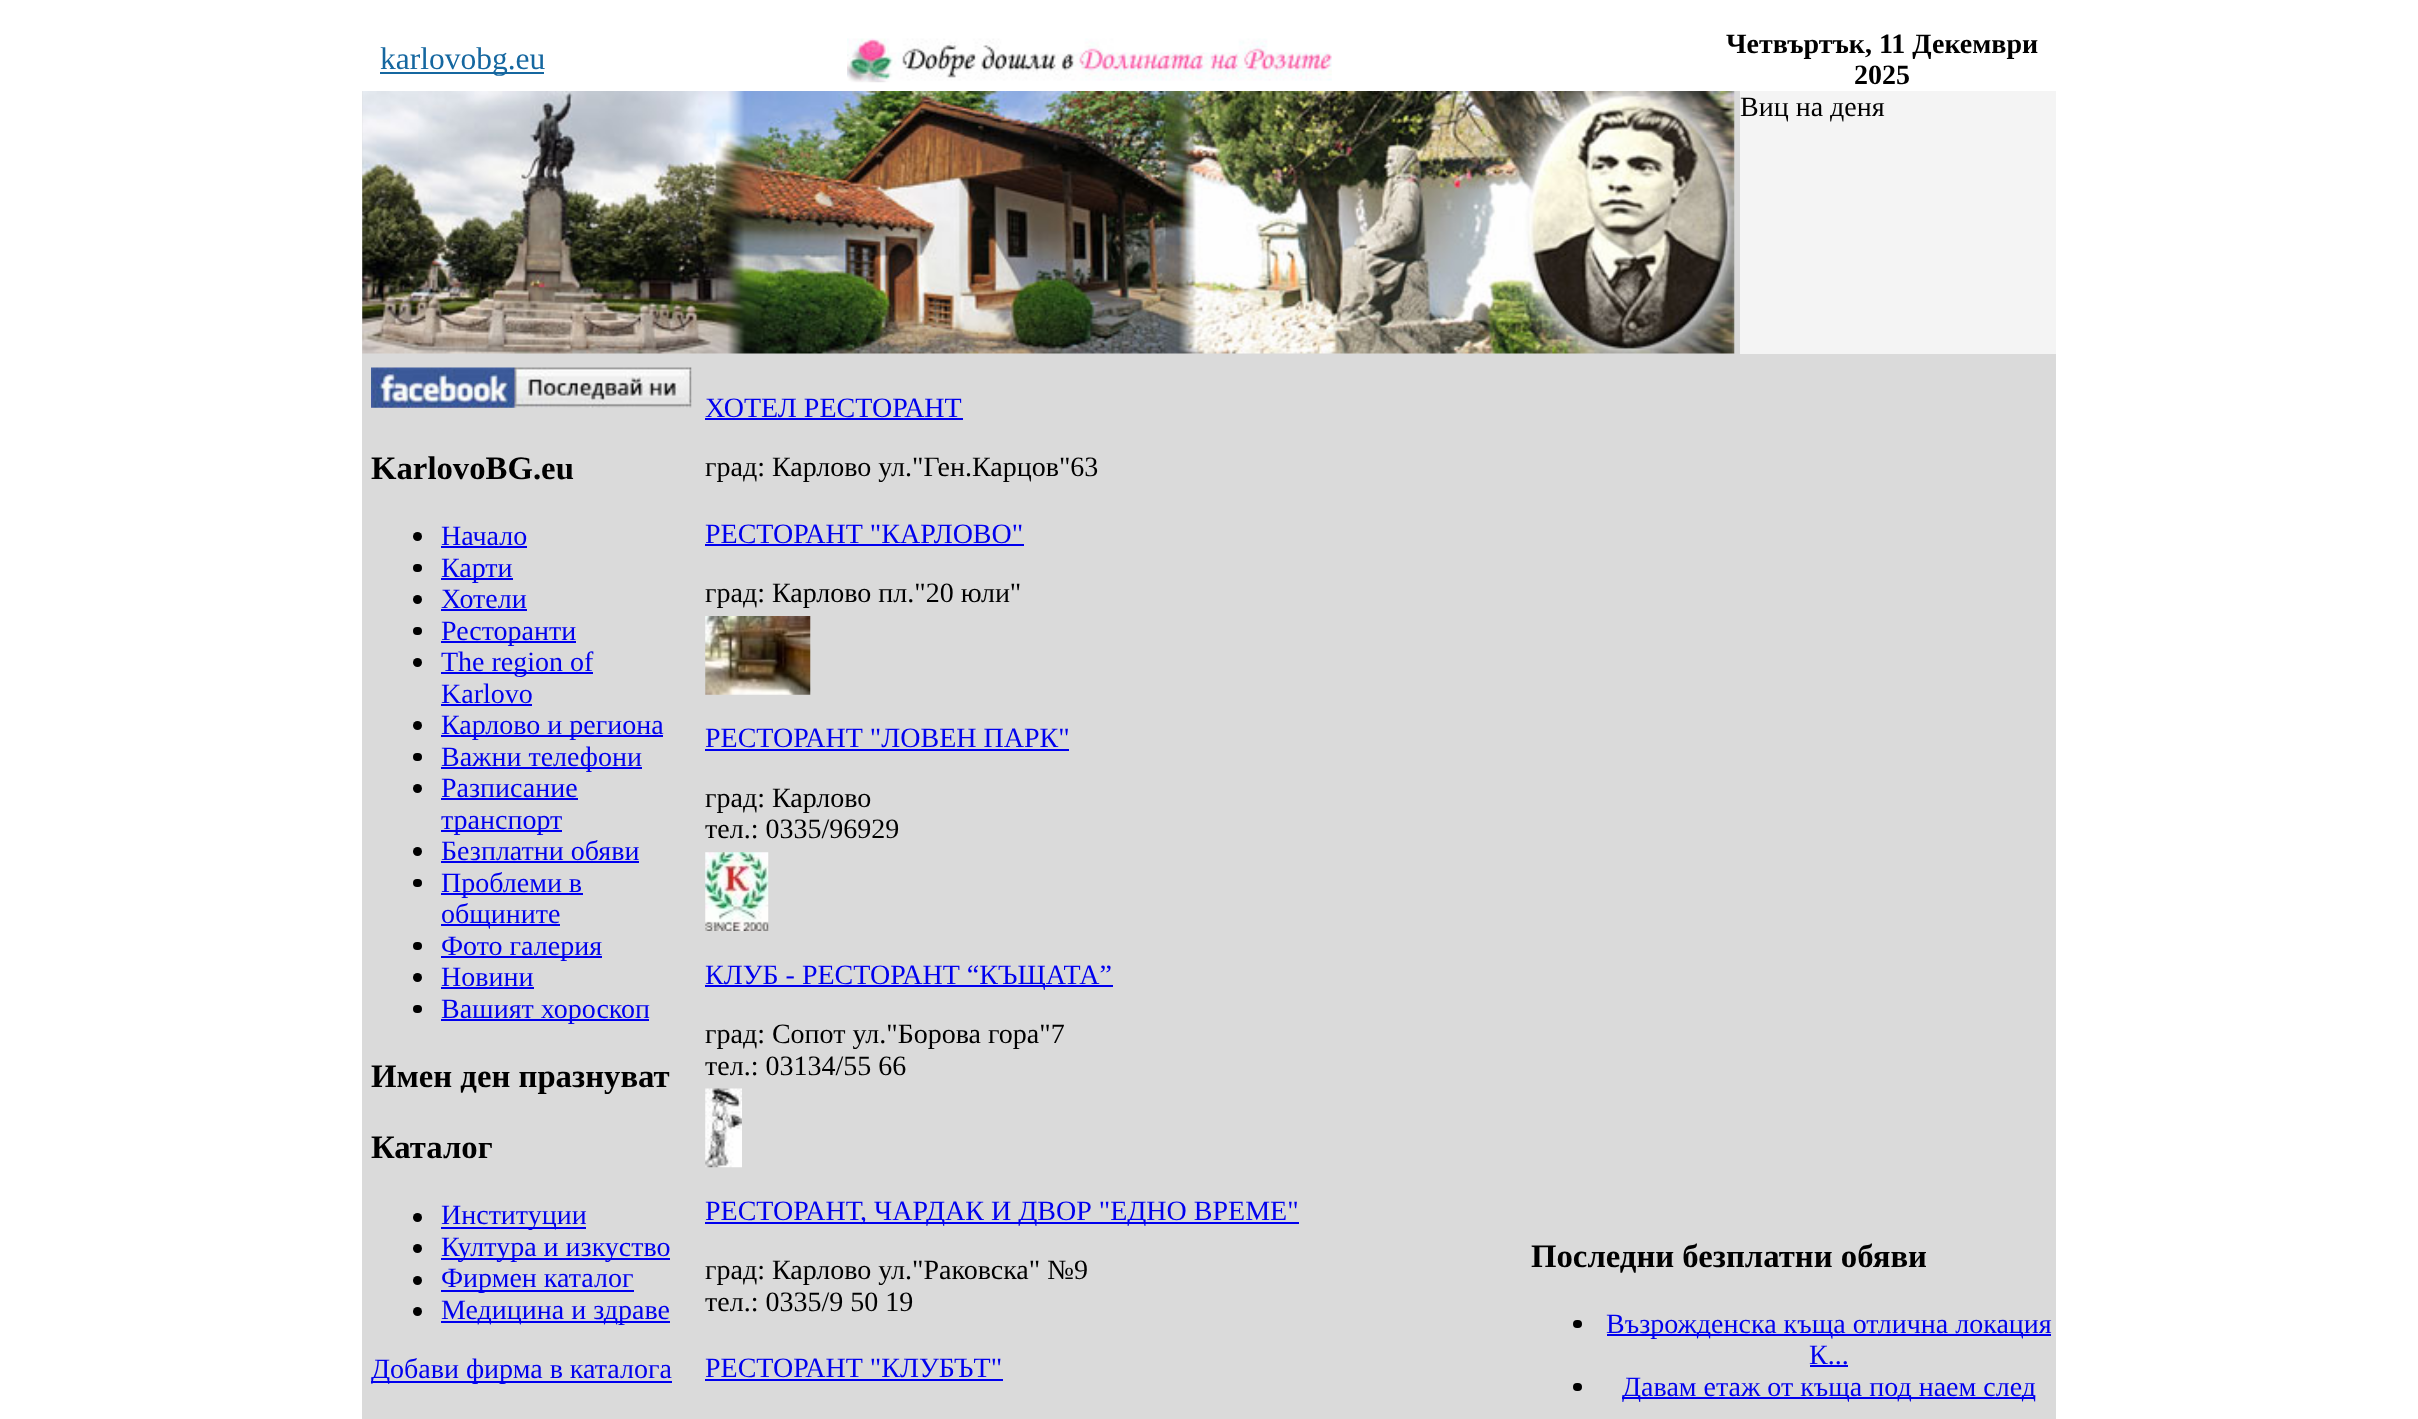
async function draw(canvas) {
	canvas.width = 2418;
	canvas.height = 1419;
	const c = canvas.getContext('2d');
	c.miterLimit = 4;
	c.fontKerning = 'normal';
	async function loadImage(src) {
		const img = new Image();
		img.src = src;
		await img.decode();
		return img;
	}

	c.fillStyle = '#fff';
	c.fillRect(0, 0, 2418, 1419);
	c.fillStyle = '#dadada';
	c.fillRect(362, 91, 1694, 1328);
	c.fillStyle = '#1567a0';
	c.fillRect(380, 72, 164, 2);
	c.font = '31.5px Liberation Serif';
	c.fillText('karlovobg.eu', 380, 69);
	c.drawImage(await loadImage('img1.png'), 847, 38, 485, 45);
	c.font = 'bold 28px Liberation Serif';
	c.fillStyle = '#000';
	c.fillText('Четвъртък, 11 Декември', 1726, 53);
	c.fillText('2025', 1854, 84);
	c.drawImage(await loadImage('img2.png'), 362, 91, 1373, 263);
	c.fillStyle = '#f4f4f4';
	c.fillRect(1740, 91, 316, 263);
	c.font = '28px Liberation Serif';
	c.fillStyle = '#000';
	c.fillText('Виц на деня', 1740, 116);
	c.drawImage(await loadImage('img3.png'), 371, 367, 321, 41);
	c.font = 'bold 32.75px Liberation Serif';
	c.fillText('KarlovoBG.eu', 371, 479);
	c.beginPath();
	c.arc(417.5, 536.5, 4.5, 0, 2 * Math.PI);
	c.fill();
	c.font = '28px Liberation Serif';
	c.fillStyle = '#00e';
	c.fillText('Начало', 441, 545);
	c.fillRect(441, 546, 86, 2);
	c.fillStyle = '#000';
	c.beginPath();
	c.roundRect(413, 564, 9, 8, 4);
	c.fill();
	c.fillStyle = '#00e';
	c.fillRect(441, 578, 72, 2);
	c.fillText('Карти', 441, 577);
	c.fillStyle = '#000';
	c.beginPath();
	c.arc(417.5, 599.5, 4.5, 0, 2 * Math.PI);
	c.fill();
	c.fillStyle = '#00e';
	c.fillText('Хотели', 441, 608);
	c.fillRect(441, 609, 86, 2);
	c.fillStyle = '#000';
	c.beginPath();
	c.roundRect(413, 627, 9, 8, 4);
	c.fill();
	c.fillStyle = '#00e';
	c.fillRect(441, 641, 135, 2);
	c.fillText('Ресторанти', 441, 640);
	c.fillStyle = '#000';
	c.beginPath();
	c.arc(417.5, 662.5, 4.5, 0, 2 * Math.PI);
	c.fill();
	c.fillStyle = '#00e';
	c.fillRect(441, 672, 152, 2);
	c.fillText('The region of', 441, 671);
	c.fillText('Karlovo', 441, 703);
	c.fillRect(441, 704, 91, 2);
	c.fillStyle = '#000';
	c.beginPath();
	c.arc(417.5, 725.5, 4.5, 0, 2 * Math.PI);
	c.fill();
	c.fillStyle = '#00e';
	c.fillRect(441, 735, 222, 2);
	c.fillText('Карлово и региона', 441, 734);
	c.fillStyle = '#000';
	c.beginPath();
	c.roundRect(413, 753, 9, 8, 4);
	c.fill();
	c.fillStyle = '#00e';
	c.fillRect(441, 767, 201, 2);
	c.fillText('Важни телефони', 441, 766);
	c.fillStyle = '#000';
	c.beginPath();
	c.arc(417.5, 788.5, 4.5, 0, 2 * Math.PI);
	c.fill();
	c.fillStyle = '#00e';
	c.fillText('Разписание', 441, 797);
	c.fillRect(441, 798, 137, 2);
	c.fillRect(441, 830, 121, 2);
	c.fillText('транспорт', 441, 829);
	c.fillStyle = '#000';
	c.beginPath();
	c.arc(417.5, 851.5, 4.5, 0, 2 * Math.PI);
	c.fill();
	c.fillStyle = '#00e';
	c.fillText('Безплатни обяви', 441, 860);
	c.fillRect(441, 861, 198, 2);
	c.fillStyle = '#000';
	c.beginPath();
	c.roundRect(413, 879, 9, 8, 4);
	c.fill();
	c.fillStyle = '#00e';
	c.fillRect(441, 893, 142, 2);
	c.fillText('Проблеми в', 441, 892);
	c.fillRect(441, 924, 119, 2);
	c.fillText('общините', 441, 923);
	c.fillStyle = '#000';
	c.beginPath();
	c.roundRect(413, 942, 9, 8, 4);
	c.fill();
	c.fillStyle = '#00e';
	c.fillRect(441, 956, 161, 2);
	c.fillText('Фото галерия', 441, 955);
	c.fillStyle = '#000';
	c.beginPath();
	c.arc(417.5, 977.5, 4.5, 0, 2 * Math.PI);
	c.fill();
	c.fillStyle = '#00e';
	c.fillText('Новини', 441, 986);
	c.fillRect(441, 987, 93, 2);
	c.fillStyle = '#000';
	c.beginPath();
	c.roundRect(413, 1005, 9, 8, 4);
	c.fill();
	c.fillStyle = '#00e';
	c.fillRect(441, 1019, 208, 2);
	c.fillText('Вашият хороскоп', 441, 1018);
	c.font = 'bold 32.75px Liberation Serif';
	c.fillStyle = '#000';
	c.fillText('Имен ден празнуват', 371, 1087);
	c.fillText('Каталог', 371, 1158);
	c.beginPath();
	c.arc(417.5, 1217.5, 4.5, 0, 2 * Math.PI);
	c.fill();
	c.fillStyle = '#00e';
	c.fillRect(441, 1227, 145, 2);
	c.font = '28px Liberation Serif';
	c.fillText('Институции', 441, 1224);
	c.fillStyle = '#000';
	c.beginPath();
	c.arc(417.5, 1248.5, 4.5, 0, 2 * Math.PI);
	c.fill();
	c.fillStyle = '#00e';
	c.fillRect(441, 1258, 229, 2);
	c.fillText('Култура и изкуство', 441, 1256);
	c.fillStyle = '#000';
	c.beginPath();
	c.arc(417.5, 1280.5, 4.5, 0, 2 * Math.PI);
	c.fill();
	c.fillStyle = '#00e';
	c.fillRect(441, 1290, 193, 2);
	c.fillText('Фирмен каталог', 441, 1287);
	c.fillStyle = '#000';
	c.beginPath();
	c.arc(417.5, 1311.5, 4.5, 0, 2 * Math.PI);
	c.fill();
	c.fillStyle = '#00e';
	c.fillRect(441, 1321, 229, 2);
	c.fillText('Медицина и здраве', 441, 1319);
	c.fillRect(371, 1381, 301, 2);
	c.fillText('Добави фирма в каталога', 371, 1378);
	c.fillText('ХОТЕЛ РЕСТОРАНТ', 705, 417);
	c.fillRect(705, 418, 258, 2);
	c.fillStyle = '#000';
	c.fillText('град: Карлово ул."Ген.Карцов"63', 705, 476);
	c.fillStyle = '#00e';
	c.fillText('РЕСТОРАНТ "КАРЛОВО"', 705, 543);
	c.fillRect(705, 544, 319, 2);
	c.fillStyle = '#000';
	c.fillText('град: Карлово пл."20 юли"', 705, 602);
	c.drawImage(await loadImage('img4.png'), 705, 616, 106, 79);
	c.fillStyle = '#00e';
	c.fillText('РЕСТОРАНТ "ЛОВЕН ПАРК"', 705, 747);
	c.fillRect(705, 749, 364, 2);
	c.fillStyle = '#000';
	c.fillText('град: Карлово', 705, 807);
	c.fillText('тел.: 0335/96929', 705, 838);
	c.drawImage(await loadImage('img5.png'), 705, 852, 64, 79);
	c.fillStyle = '#00e';
	c.fillRect(705, 985, 408, 2);
	c.fillText('КЛУБ - РЕСТОРАНТ “КЪЩАТА”', 705, 984);
	c.fillStyle = '#000';
	c.fillText('град: Сопот ул."Борова гора"7', 705, 1043);
	c.fillText('тел.: 03134/55 66', 705, 1075);
	c.drawImage(await loadImage('img6.png'), 705, 1088, 37, 80);
	c.fillStyle = '#00e';
	c.fillRect(705, 1222, 594, 2);
	c.fillText('РЕСТОРАНТ, ЧАРДАК И ДВОР "ЕДНО ВРЕМЕ"', 705, 1220);
	c.fillStyle = '#000';
	c.fillText('град: Карлово ул."Раковска" №9', 705, 1279);
	c.fillText('тел.: 0335/9 50 19', 705, 1311);
	c.fillStyle = '#00e';
	c.fillText('РЕСТОРАНТ "КЛУБЪТ"', 705, 1377);
	c.fillRect(705, 1379, 298, 2);
	c.font = 'bold 32.75px Liberation Serif';
	c.fillStyle = '#000';
	c.fillText('Последни безплатни обяви', 1531, 1267);
	c.beginPath();
	c.roundRect(1573, 1320, 9, 8, 4);
	c.fill();
	c.fillStyle = '#00e';
	c.fillRect(1607, 1334, 444, 2);
	c.font = '28px Liberation Serif';
	c.fillText('Възрожденска къща отлична локация', 1606, 1333);
	c.fillText('К...', 1809, 1364);
	c.fillRect(1810, 1365, 38, 2);
	c.fillStyle = '#000';
	c.beginPath();
	c.roundRect(1573, 1383, 9, 8, 4);
	c.fill();
	c.fillStyle = '#00e';
	c.fillRect(1622, 1397, 413, 2);
	c.fillText('Давам етаж от къща под наем след', 1622, 1396);
}

draw(document.querySelector('canvas'));
